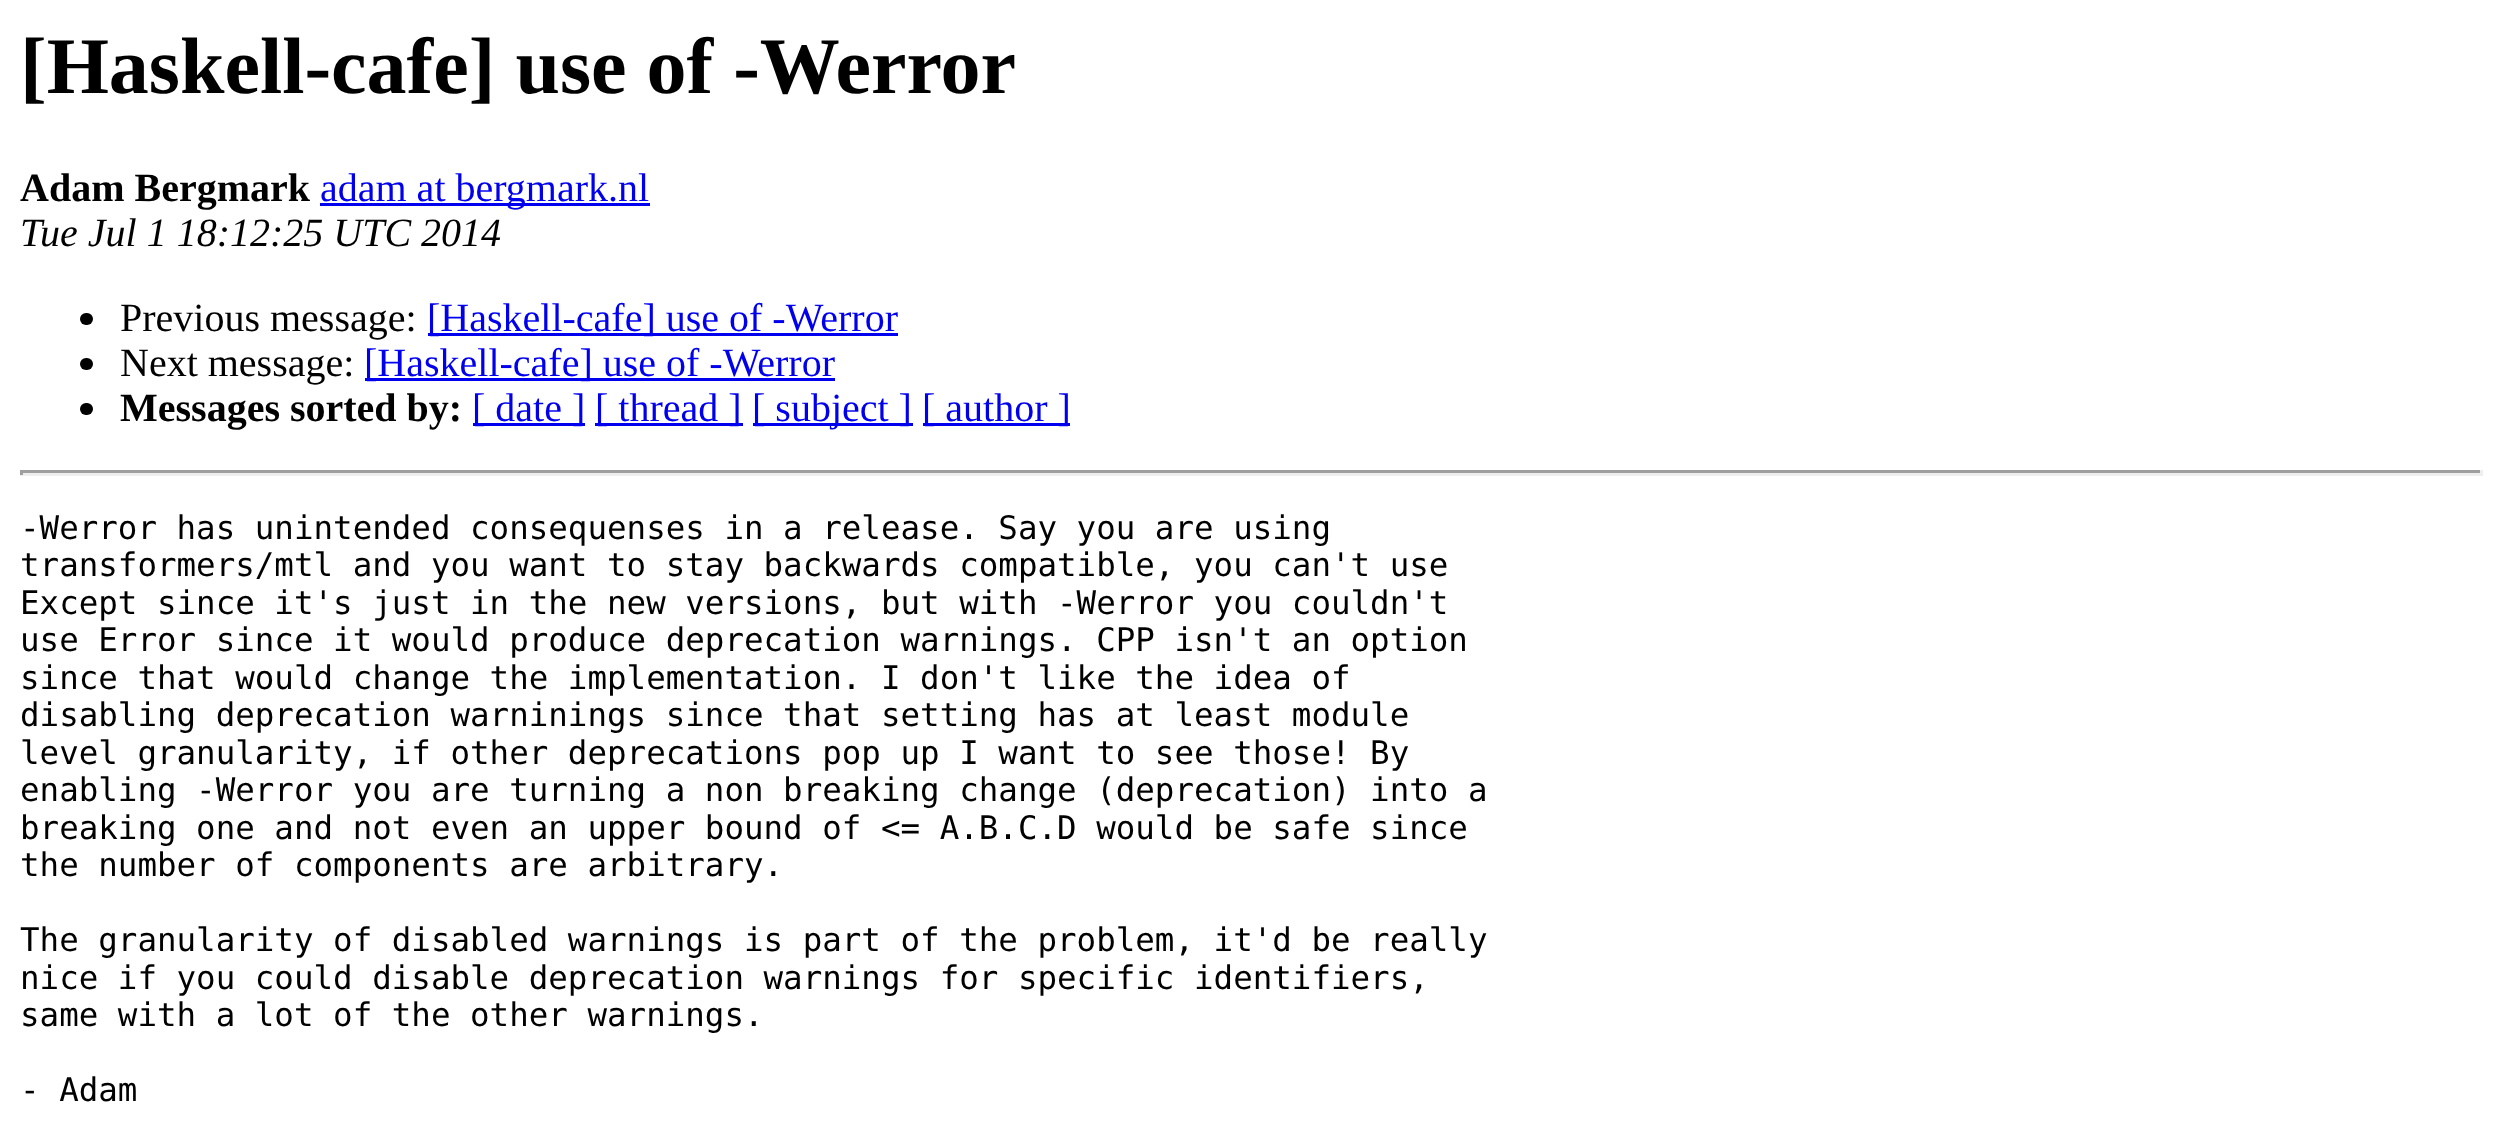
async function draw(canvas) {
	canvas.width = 2501;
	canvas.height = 1132;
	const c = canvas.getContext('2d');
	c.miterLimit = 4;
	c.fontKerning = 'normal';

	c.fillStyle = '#fff';
	c.fillRect(0, 0, 2501, 1132);
	c.font = 'bold 80px Liberation Serif';
	c.fillStyle = '#000';
	c.fillText('[Haskell-cafe] use of -Werror', 20, 93);
	c.font = 'bold 40px Liberation Serif';
	c.fillText('Adam Bergmark', 20, 201);
	c.fillStyle = '#00e';
	c.fillRect(320, 203, 330, 3);
	c.font = '40px Liberation Serif';
	c.fillText('adam at bergmark.nl', 320, 201);
	c.font = 'italic 40px Liberation Serif';
	c.fillStyle = '#000';
	c.fillText('Tue Jul 1 18:12:25 UTC 2014', 20, 246);
	c.beginPath();
	c.roundRect(80, 313, 13, 12, 6);
	c.fill();
	c.font = '40px Liberation Serif';
	c.fillText('Previous message:', 120, 331);
	c.fillStyle = '#00e';
	c.fillRect(428, 333, 470, 3);
	c.fillText('[Haskell-cafe] use of -Werror', 427, 331);
	c.fillStyle = '#000';
	c.beginPath();
	c.roundRect(80, 358, 13, 12, 6);
	c.fill();
	c.fillText('Next message:', 120, 376);
	c.fillStyle = '#00e';
	c.fillRect(365, 378, 470, 3);
	c.fillText('[Haskell-cafe] use of -Werror', 364, 376);
	c.fillStyle = '#000';
	c.beginPath();
	c.roundRect(80, 403, 13, 12, 6);
	c.fill();
	c.font = 'bold 40px Liberation Serif';
	c.fillText('Messages sorted by:', 120, 421);
	c.fillStyle = '#00e';
	c.fillRect(473, 423, 112, 3);
	c.font = '40px Liberation Serif';
	c.fillText('[ date ]', 472, 421);
	c.fillRect(595, 423, 148, 3);
	c.fillText('[ thread ]', 595, 421);
	c.fillRect(753, 423, 160, 3);
	c.fillText('[ subject ]', 752, 421);
	c.fillRect(923, 423, 147, 3);
	c.fillText('[ author ]', 922, 421);
	for (const [x, y, w, h, color] of [
		[20, 470, 2463, 3, '#9f9f9f'],
		[2480, 470, 3, 5, '#eee'],
		[20, 473, 2463, 3, '#eee'],
		[20, 470, 3, 5, '#9f9f9f'],
	]) {
		c.fillStyle = color;
		c.fillRect(x, y, w, h);
	}
	c.font = '32.5px DejaVu Sans Mono';
	c.fillStyle = '#000';
	for (const [text, x, y] of [
		['-Werror has unintended consequenses in a release. Say you are using', 20, 539],
		['transformers/mtl and you want to stay backwards compatible, you can\'t use', 20, 576],
		['Except since it\'s just in the new versions, but with -Werror you couldn\'t', 20, 614],
		['use Error since it would produce deprecation warnings. CPP isn\'t an option', 20, 651],
		['since that would change the implementation. I don\'t like the idea of', 20, 689],
		['disabling deprecation warninings since that setting has at least module', 20, 726],
		['level granularity, if other deprecations pop up I want to see those! By', 20, 764],
		['enabling -Werror you are turning a non breaking change (deprecation) into a', 20, 801],
		['breaking one and not even an upper bound of <= A.B.C.D would be safe since', 20, 839],
		['the number of components are arbitrary.', 20, 876],
		['The granularity of disabled warnings is part of the problem, it\'d be really', 20, 951],
		['nice if you could disable deprecation warnings for specific identifiers,', 20, 989],
		['same with a lot of the other warnings.', 20, 1026],
		['- Adam', 20, 1101],
	]) {
		c.fillText(text, x, y);
	}
}

draw(document.querySelector('canvas'));
